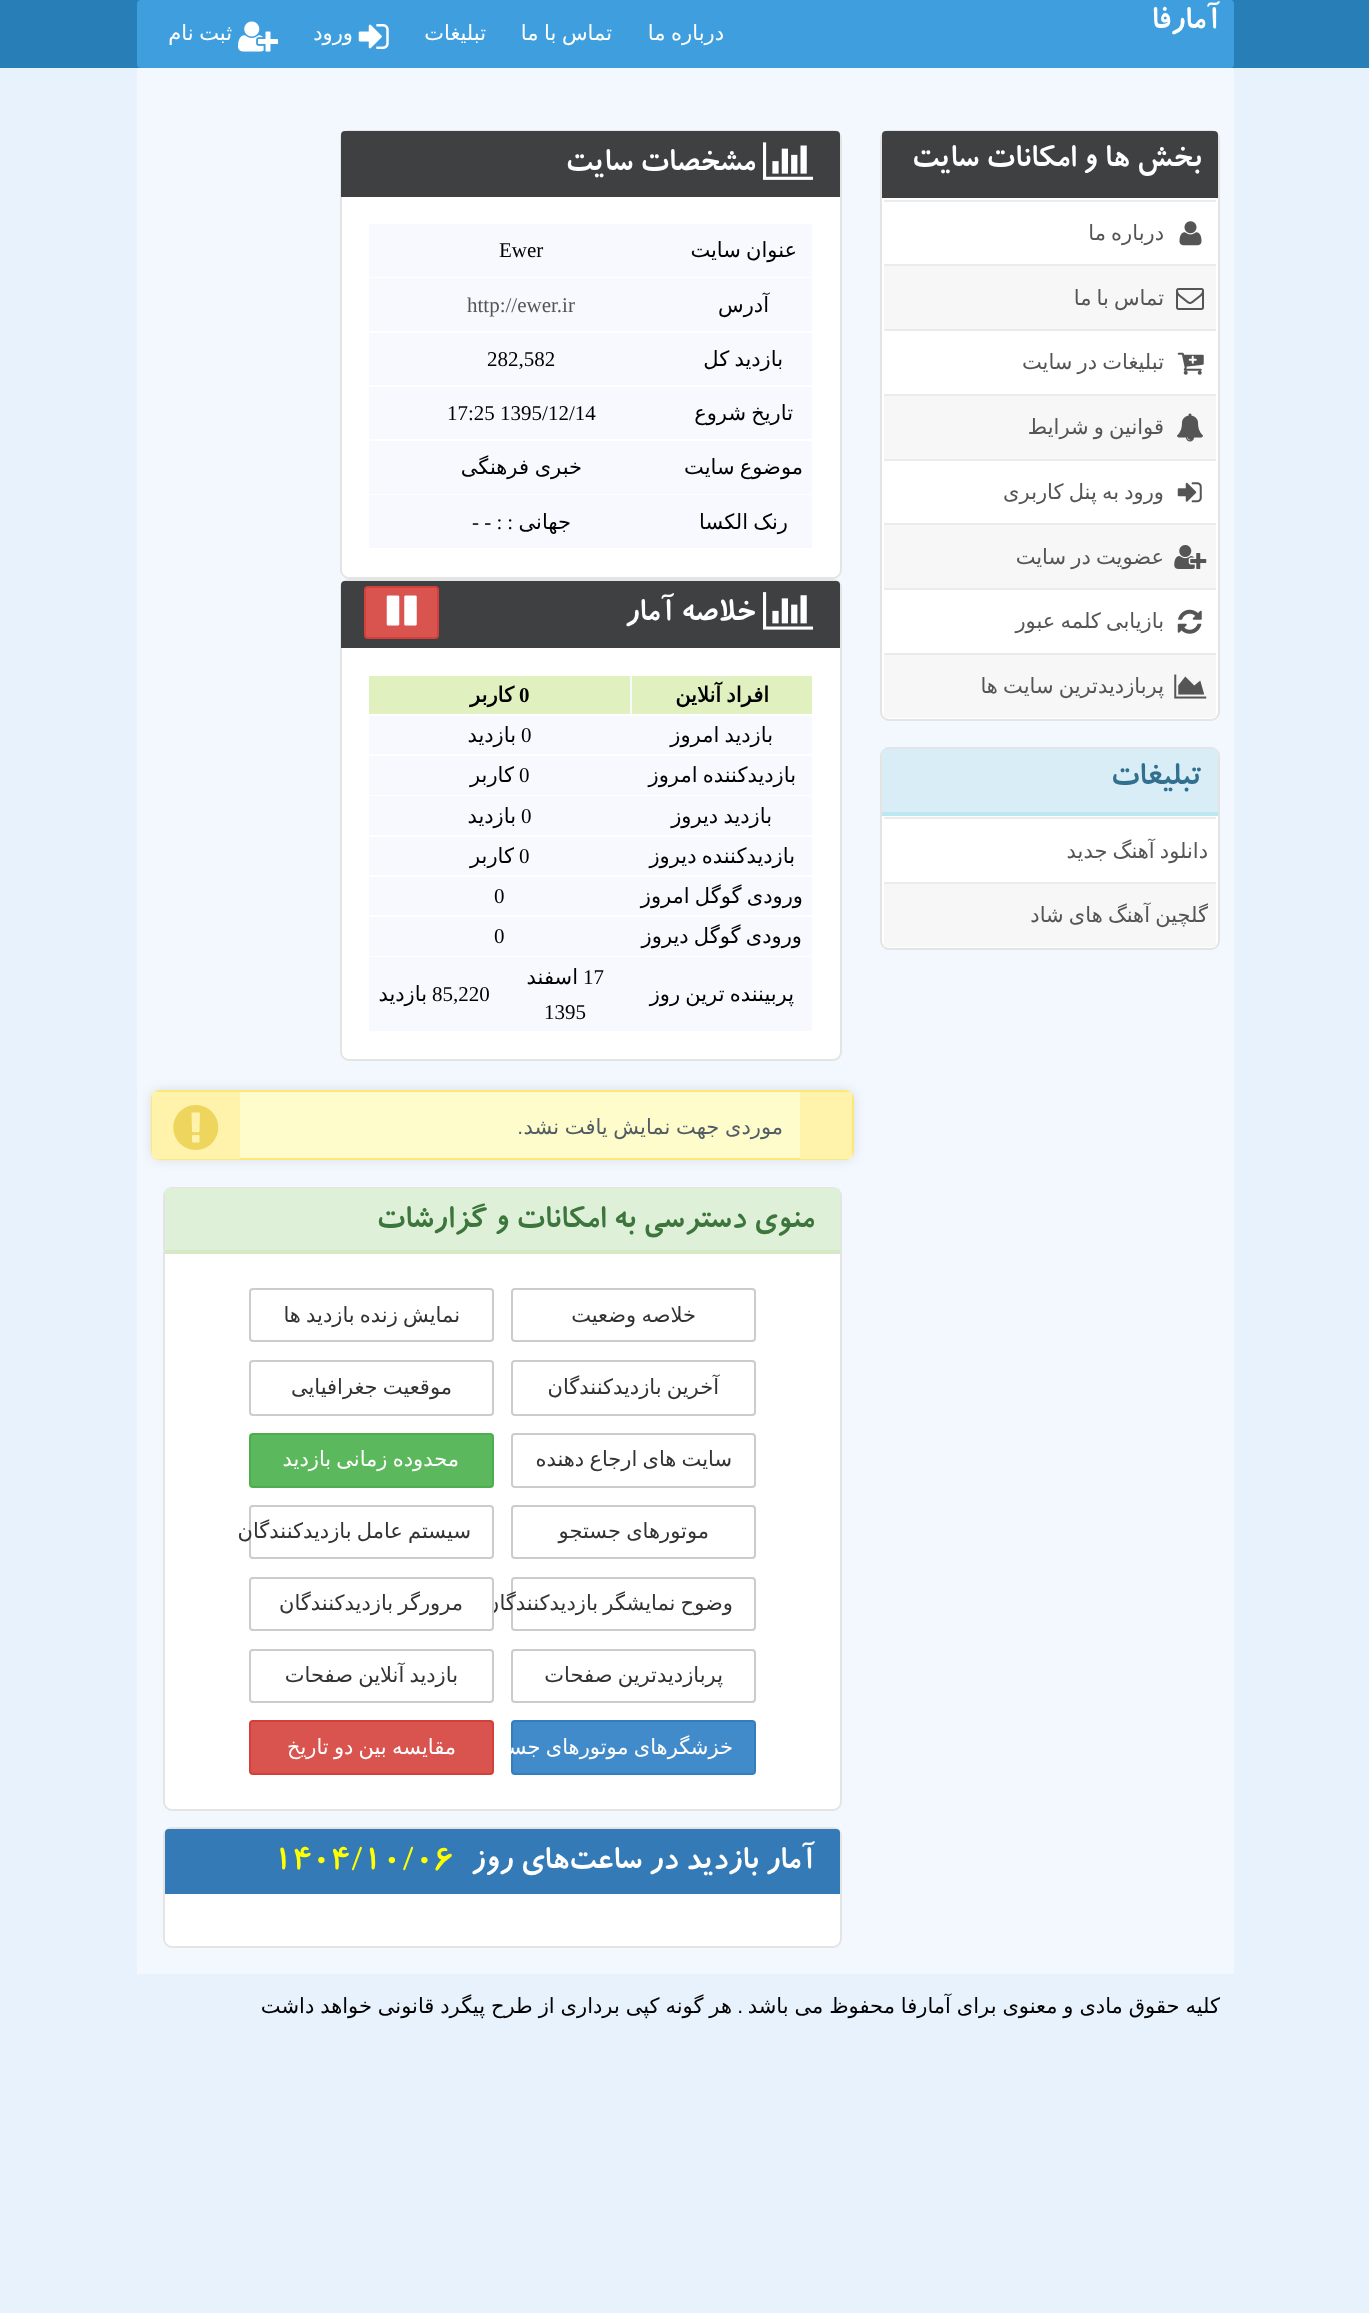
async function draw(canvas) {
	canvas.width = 1369;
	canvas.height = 2313;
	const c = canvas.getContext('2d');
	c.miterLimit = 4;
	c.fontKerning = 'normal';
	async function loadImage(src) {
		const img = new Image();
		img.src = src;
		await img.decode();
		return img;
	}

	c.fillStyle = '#e8f2fd';
	c.fillRect(0, 0, 1369, 2313);
	c.fillStyle = '#287eb7';
	c.fillRect(0, 0, 1369, 68);
	c.fillStyle = '#3e9ede';
	c.beginPath();
	c.roundRect(137, 0, 1097, 68, 4);
	c.fill();
	c.direction = 'rtl';
	c.font = 'bold 35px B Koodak';
	c.fillStyle = '#fff';
	c.fillText('آمارفا', 1219, 28);
	c.wordSpacing = '-1px';
	c.font = '21px DejaVu Sans';
	c.fillText('درباره ما', 724, 40);
	c.fillText('تماس با ما', 612, 40);
	c.wordSpacing = '0px';
	c.fillText('تبلیغات', 486, 40);
	c.drawImage(await loadImage('img1.png'), 358, 24, 31, 25);
	c.fillText('ورود', 353, 40);
	c.drawImage(await loadImage('img2.png'), 238, 21, 40, 31);
	c.wordSpacing = '-1px';
	c.fillText('ثبت نام', 232, 40);
	c.fillStyle = '#f3f8fe';
	c.fillRect(137, 68, 1097, 1906);
	c.fillStyle = '#fff';
	c.beginPath();
	c.roundRect(881, 131, 338, 589, 8);
	c.fill();
	c.strokeStyle = '#e4e4e4';
	c.lineWidth = 2;
	c.stroke();
	c.fillStyle = '#3f4042';
	c.beginPath();
	c.roundRect(882, 131, 336, 67, [4, 4, 0, 0]);
	c.fill();
	c.wordSpacing = '0px';
	c.font = 'bold 35px B Koodak';
	c.fillStyle = '#fff';
	c.fillText('بخش ها و امکانات سایت', 1201, 166);
	c.fillStyle = '#ebebeb';
	c.fillRect(884, 200, 332, 2);
	c.drawImage(await loadImage('img3.png'), 1179, 221, 23, 25);
	c.wordSpacing = '-1.5px';
	c.font = '21px DejaVu Sans';
	c.fillStyle = '#555';
	c.fillText('درباره ما', 1164, 240);
	c.fillStyle = '#f7f7f7';
	c.fillRect(884, 266, 332, 63);
	c.fillStyle = '#ebebeb';
	c.fillRect(884, 264, 332, 2);
	c.drawImage(await loadImage('img4.png'), 1176, 288, 28, 22);
	c.fillStyle = '#555';
	c.fillText('تماس با ما', 1164, 305);
	c.fillStyle = '#ebebeb';
	c.fillRect(884, 329, 332, 2);
	c.drawImage(await loadImage('img5.png'), 1177, 352, 27, 23);
	c.fillStyle = '#555';
	c.fillText('تبلیغات در سایت', 1164, 369);
	c.fillStyle = '#f7f7f7';
	c.fillRect(884, 396, 332, 63);
	c.fillStyle = '#ebebeb';
	c.fillRect(884, 394, 332, 2);
	c.drawImage(await loadImage('img6.png'), 1177, 413, 26, 29);
	c.fillStyle = '#555';
	c.fillText('قوانین و شرایط', 1164, 434);
	c.fillStyle = '#ebebeb';
	c.fillRect(884, 459, 332, 2);
	c.drawImage(await loadImage('img7.png'), 1177, 482, 25, 21);
	c.fillStyle = '#555';
	c.fillText('ورود به پنل کاربری', 1164, 499);
	c.fillStyle = '#f7f7f7';
	c.fillRect(884, 525, 332, 63);
	c.fillStyle = '#ebebeb';
	c.fillRect(884, 523, 332, 2);
	c.drawImage(await loadImage('img8.png'), 1174, 545, 33, 24);
	c.fillStyle = '#555';
	c.fillText('عضویت در سایت', 1164, 564);
	c.fillStyle = '#ebebeb';
	c.fillRect(884, 588, 332, 2);
	c.drawImage(await loadImage('img9.png'), 1177, 609, 25, 25);
	c.fillStyle = '#555';
	c.fillText('بازیابی کلمه عبور', 1164, 628);
	c.fillStyle = '#f7f7f7';
	c.fillRect(884, 655, 332, 63);
	c.fillStyle = '#ebebeb';
	c.fillRect(884, 653, 332, 2);
	c.drawImage(await loadImage('img10.png'), 1174, 674, 33, 25);
	c.fillStyle = '#555';
	c.fillText('پربازدیدترین سایت ها', 1164, 693);
	c.fillStyle = '#fff';
	c.beginPath();
	c.roundRect(881, 748, 338, 201, 8);
	c.fill();
	c.stroke();
	c.fillStyle = '#d9edf7';
	c.beginPath();
	c.roundRect(882, 749, 336, 67, [4, 4, 0, 0]);
	c.fill();
	c.fillStyle = '#bce8f1';
	c.fillRect(882, 812, 336, 4);
	c.wordSpacing = '0px';
	c.font = 'bold 35px B Koodak';
	c.fillStyle = '#31708f';
	c.fillText('تبلیغات', 1201, 784);
	c.fillStyle = '#ebebeb';
	c.fillRect(884, 817, 332, 2);
	c.wordSpacing = '-1.5px';
	c.font = '21px DejaVu Sans';
	c.fillStyle = '#555';
	c.fillText('دانلود آهنگ جدید', 1208, 858);
	c.fillStyle = '#f7f7f7';
	c.fillRect(884, 884, 332, 63);
	c.fillStyle = '#ebebeb';
	c.fillRect(884, 882, 332, 2);
	c.fillStyle = '#555';
	c.fillText('گلچین آهنگ های شاد', 1208, 922);
	c.fillStyle = '#fff';
	c.beginPath();
	c.roundRect(341, 131, 500, 447, 8);
	c.fill();
	c.stroke();
	c.fillStyle = '#3f4042';
	c.beginPath();
	c.roundRect(341, 131, 499, 65, [4, 4, 0, 0]);
	c.fill();
	c.fillRect(341, 196, 499, 1);
	c.drawImage(await loadImage('img11.png'), 763, 142, 50, 38);
	c.wordSpacing = '0px';
	c.font = 'bold 35px B Koodak';
	c.fillStyle = '#fff';
	c.fillText('مشخصات سايت', 755, 170);
	c.fillStyle = '#f7f9ff';
	c.fillRect(369, 224, 443, 53);
	c.wordSpacing = '-1.5px';
	c.font = '21px DejaVu Sans';
	c.fillStyle = '#000';
	c.fillText('عنوان سايت', 797, 257);
	c.wordSpacing = '0px';
	c.direction = 'ltr';
	c.font = '21px Liberation Serif';
	c.fillText('Ewer', 499, 257);
	c.fillStyle = '#f7f9ff';
	c.fillRect(369, 278, 443, 53);
	c.direction = 'rtl';
	c.font = '21px DejaVu Sans';
	c.fillStyle = '#000';
	c.fillText('آدرس', 769, 312);
	c.direction = 'ltr';
	c.font = '21px Liberation Serif';
	c.fillStyle = '#555';
	c.fillText('http://ewer.ir', 467, 312);
	c.fillStyle = '#f7f9ff';
	c.fillRect(369, 333, 443, 52);
	c.wordSpacing = '-1.5px';
	c.direction = 'rtl';
	c.font = '21px DejaVu Sans';
	c.fillStyle = '#000';
	c.fillText('بازدید کل', 783, 366);
	c.wordSpacing = '0px';
	c.direction = 'ltr';
	c.font = '21px Liberation Serif';
	c.fillText('282,582', 487, 366);
	c.fillStyle = '#f7f9ff';
	c.fillRect(369, 387, 443, 52);
	c.wordSpacing = '-1.5px';
	c.direction = 'rtl';
	c.font = '21px DejaVu Sans';
	c.fillStyle = '#000';
	c.fillText('تاریخ شروع', 793, 420);
	c.wordSpacing = '0px';
	c.direction = 'ltr';
	c.font = '21px Liberation Serif';
	c.fillText('17:25 1395/12/14', 447, 420);
	c.fillStyle = '#f7f9ff';
	c.fillRect(369, 441, 443, 53);
	c.wordSpacing = '-1.5px';
	c.direction = 'rtl';
	c.font = '21px DejaVu Sans';
	c.fillStyle = '#000';
	c.fillText('موضوع سایت', 803, 474);
	c.wordSpacing = '0px';
	c.fillText('خبری', 582, 474);
	c.fillText('فرهنگی', 529, 474);
	c.fillStyle = '#f7f9ff';
	c.fillRect(369, 495, 443, 53);
	c.wordSpacing = '-1.5px';
	c.fillStyle = '#000';
	c.fillText('رنک الکسا', 788, 529);
	c.wordSpacing = '0px';
	c.fillText('جهانی', 571, 529);
	c.font = '21px Liberation Serif';
	c.fillText(':', 513, 529);
	c.direction = 'ltr';
	c.fillText('- - :', 472, 529);
	c.fillStyle = '#fff';
	c.beginPath();
	c.roundRect(341, 580, 500, 480, 8);
	c.fill();
	c.stroke();
	c.fillStyle = '#3f4042';
	c.beginPath();
	c.roundRect(341, 581, 499, 67, [4, 4, 0, 0]);
	c.fill();
	c.drawImage(await loadImage('img12.png'), 763, 592, 50, 38);
	c.direction = 'rtl';
	c.font = 'bold 35px B Koodak';
	c.fillStyle = '#fff';
	c.fillText('خلاصه آمار', 755, 620);
	c.fillStyle = '#d9534f';
	c.beginPath();
	c.roundRect(365, 587, 73, 51, 3);
	c.fill();
	c.strokeStyle = '#d43f3a';
	c.stroke();
	c.drawImage(await loadImage('img13.png'), 386, 595, 31, 31);
	c.fillStyle = '#f7f9ff';
	c.fillRect(630, 676, 2, 38);
	c.fillStyle = '#e1f0bf';
	c.fillRect(632, 676, 180, 38);
	c.wordSpacing = '-1.5px';
	c.font = 'bold 21px DejaVu Sans';
	c.fillStyle = '#000';
	c.fillText('افراد آنلاين', 769, 702);
	c.fillStyle = '#e1f0bf';
	c.fillRect(369, 676, 261, 38);
	c.wordSpacing = '0px';
	c.direction = 'ltr';
	c.font = 'bold 21px Liberation Serif';
	c.fillStyle = '#000';
	c.fillText('0', 519, 702);
	c.direction = 'rtl';
	c.font = 'bold 21px DejaVu Sans';
	c.fillText('کاربر', 514, 702);
	c.fillStyle = '#f7f9ff';
	c.fillRect(369, 716, 443, 38);
	c.wordSpacing = '-1.5px';
	c.font = '21px DejaVu Sans';
	c.fillStyle = '#000';
	c.fillText('بازدید امروز', 773, 742);
	c.wordSpacing = '0px';
	c.direction = 'ltr';
	c.font = '21px Liberation Serif';
	c.fillText('0', 521, 742);
	c.direction = 'rtl';
	c.font = '21px DejaVu Sans';
	c.fillText('بازدید', 516, 742);
	c.fillStyle = '#f7f9ff';
	c.fillRect(369, 756, 443, 39);
	c.wordSpacing = '-1.5px';
	c.fillStyle = '#000';
	c.fillText('بازدیدکننده امروز', 796, 782);
	c.wordSpacing = '0px';
	c.direction = 'ltr';
	c.font = '21px Liberation Serif';
	c.fillText('0', 519, 782);
	c.direction = 'rtl';
	c.font = '21px DejaVu Sans';
	c.fillText('کاربر', 514, 782);
	c.fillStyle = '#f7f9ff';
	c.fillRect(369, 796, 443, 39);
	c.wordSpacing = '-1.5px';
	c.fillStyle = '#000';
	c.fillText('بازدید دیروز', 772, 823);
	c.wordSpacing = '0px';
	c.direction = 'ltr';
	c.font = '21px Liberation Serif';
	c.fillText('0', 521, 823);
	c.direction = 'rtl';
	c.font = '21px DejaVu Sans';
	c.fillText('بازدید', 516, 823);
	c.fillStyle = '#f7f9ff';
	c.fillRect(369, 837, 443, 38);
	c.wordSpacing = '-1.5px';
	c.fillStyle = '#000';
	c.fillText('بازدیدکننده دیروز', 795, 863);
	c.wordSpacing = '0px';
	c.direction = 'ltr';
	c.font = '21px Liberation Serif';
	c.fillText('0', 519, 863);
	c.direction = 'rtl';
	c.font = '21px DejaVu Sans';
	c.fillText('کاربر', 514, 863);
	c.fillStyle = '#f7f9ff';
	c.fillRect(369, 877, 443, 38);
	c.wordSpacing = '-1.5px';
	c.fillStyle = '#000';
	c.fillText('ورودی گوگل امروز', 803, 903);
	c.wordSpacing = '0px';
	c.direction = 'ltr';
	c.font = '21px Liberation Serif';
	c.fillText('0', 494, 903);
	c.fillStyle = '#f7f9ff';
	c.fillRect(369, 917, 443, 39);
	c.wordSpacing = '-1.5px';
	c.direction = 'rtl';
	c.font = '21px DejaVu Sans';
	c.fillStyle = '#000';
	c.fillText('ورودی گوگل دیروز', 802, 943);
	c.wordSpacing = '0px';
	c.direction = 'ltr';
	c.font = '21px Liberation Serif';
	c.fillText('0', 494, 943);
	c.fillStyle = '#f7f9ff';
	c.fillRect(369, 957, 443, 74);
	c.wordSpacing = '-1.5px';
	c.direction = 'rtl';
	c.font = '21px DejaVu Sans';
	c.fillStyle = '#000';
	c.fillText('پربیننده ترین روز', 794, 1001);
	c.wordSpacing = '0px';
	c.direction = 'ltr';
	c.font = '21px Liberation Serif';
	c.fillText('17', 583, 984);
	c.direction = 'rtl';
	c.font = '21px DejaVu Sans';
	c.fillText('اسفند', 578, 984);
	c.direction = 'ltr';
	c.font = '21px Liberation Serif';
	c.fillText('1395', 544, 1019);
	c.fillText('85,220', 432, 1001);
	c.direction = 'rtl';
	c.font = '21px DejaVu Sans';
	c.fillText('بازدید', 427, 1001);
	c.fillStyle = '#0000001a';
	c.filter = 'blur(6px)';
	c.beginPath();
	c.roundRect(151, 1090, 703, 70, 9);
	c.fill();
	c.filter = 'none';
	c.fillStyle = '#fffccb';
	c.beginPath();
	c.roundRect(152, 1091, 701, 68, 8);
	c.fill();
	c.strokeStyle = '#fce876';
	c.stroke();
	c.fillStyle = '#fff3ab';
	c.fillRect(800, 1092, 52, 67);
	c.fillRect(152, 1092, 88, 67);
	c.wordSpacing = '-1px';
	c.fillStyle = '#525c65';
	c.fillText('موردی جهت نمایش یافت نشد', 783, 1134);
	c.wordSpacing = '0px';
	c.font = '21px Liberation Sans';
	c.fillText('.', 523, 1134);
	c.drawImage(await loadImage('img14.png'), 173, 1105, 46, 45);
	c.fillStyle = '#fff';
	c.beginPath();
	c.roundRect(164, 1188, 677, 622, 8);
	c.fill();
	c.strokeStyle = '#e4e4e4';
	c.stroke();
	c.fillStyle = '#dff0d8';
	c.beginPath();
	c.roundRect(165, 1188, 675, 65, [4, 4, 0, 0]);
	c.fill();
	c.fillStyle = '#d6e9c6';
	c.fillRect(165, 1250, 675, 4);
	c.font = 'bold 35px B Koodak';
	c.fillStyle = '#3c763d';
	c.fillText('منوی دسترسی به امکانات و گزارشات', 814, 1227);
	c.beginPath();
	c.roundRect(512, 1289, 243, 52, 3);
	c.strokeStyle = '#ccc';
	c.stroke();
	c.wordSpacing = '-1.5px';
	c.font = '21px DejaVu Sans';
	c.fillStyle = '#333';
	c.fillText('خلاصه وضعیت', 696, 1322);
	c.beginPath();
	c.roundRect(250, 1289, 243, 52, 3);
	c.stroke();
	c.fillText('نمایش زنده بازدید ها', 460, 1322);
	c.beginPath();
	c.roundRect(512, 1361, 243, 54, 3);
	c.stroke();
	c.fillText('آخرین بازدیدکنندگان', 719, 1394);
	c.beginPath();
	c.roundRect(250, 1361, 243, 54, 3);
	c.stroke();
	c.fillText('موقعيت جغرافيايی', 452, 1394);
	c.beginPath();
	c.roundRect(512, 1434, 243, 53, 3);
	c.stroke();
	c.fillText('سایت های ارجاع دهنده', 732, 1466);
	c.fillStyle = '#5cb85c';
	c.beginPath();
	c.roundRect(250, 1434, 243, 53, 3);
	c.fill();
	c.strokeStyle = '#4cae4c';
	c.stroke();
	c.fillStyle = '#fff';
	c.fillText('محدوده زمانی بازديد', 459, 1466);
	c.beginPath();
	c.roundRect(512, 1506, 243, 52, 3);
	c.strokeStyle = '#ccc';
	c.stroke();
	c.fillStyle = '#333';
	c.fillText('موتورهای جستجو', 709, 1538);
	c.beginPath();
	c.roundRect(250, 1506, 243, 52, 3);
	c.stroke();
	c.fillText('سیستم عامل بازدیدکنندگان', 471, 1538);
	c.beginPath();
	c.roundRect(512, 1578, 243, 52, 3);
	c.stroke();
	c.fillText('وضوح نمایشگر بازدیدکنندگان', 733, 1610);
	c.fillStyle = '#fff';
	c.beginPath();
	c.roundRect(250, 1578, 243, 52, 3);
	c.fill();
	c.stroke();
	c.fillStyle = '#333';
	c.fillText('مرورگر بازدیدکنندگان', 463, 1610);
	c.beginPath();
	c.roundRect(512, 1650, 243, 52, 3);
	c.stroke();
	c.fillText('پربازدیدترین صفحات', 723, 1682);
	c.beginPath();
	c.roundRect(250, 1650, 243, 52, 3);
	c.stroke();
	c.fillText('بازدید آنلاین صفحات', 458, 1682);
	c.fillStyle = '#428bca';
	c.beginPath();
	c.roundRect(512, 1721, 243, 53, 3);
	c.fill();
	c.strokeStyle = '#357ebd';
	c.stroke();
	c.fillStyle = '#fff';
	c.fillText('خزشگرهای موتورهای جستجو', 733, 1754);
	c.fillStyle = '#d9534f';
	c.beginPath();
	c.roundRect(250, 1721, 243, 53, 3);
	c.fill();
	c.strokeStyle = '#d43f3a';
	c.stroke();
	c.fillStyle = '#fff';
	c.fillText('مقایسه بین دو تاریخ', 456, 1754);
	c.beginPath();
	c.roundRect(164, 1828, 677, 119, 8);
	c.fill();
	c.strokeStyle = '#e4e4e4';
	c.stroke();
	c.fillStyle = '#337ab7';
	c.beginPath();
	c.roundRect(165, 1829, 675, 65, [4, 4, 0, 0]);
	c.fill();
	c.wordSpacing = '0px';
	c.font = 'bold 35px B Koodak';
	c.fillStyle = '#fff';
	c.fillText('آمار بازديد در ساعت‌های روز', 814, 1868);
	c.direction = 'ltr';
	c.fillStyle = '#ff0';
	c.fillText('1404/10/06', 274, 1868);
	c.wordSpacing = '-0.75px';
	c.direction = 'rtl';
	c.font = '21px DejaVu Sans';
	c.fillStyle = '#000';
	c.fillText('کلیه حقوق مادی و معنوی برای آمارفا محفوظ می باشد', 1220, 2013);
	c.wordSpacing = '0px';
	c.font = '21px Liberation Sans';
	c.fillText('.', 743, 2013);
	c.wordSpacing = '-0.75px';
	c.font = '21px DejaVu Sans';
	c.fillText('هر گونه کپی برداری از طرح پیگرد قانونی خواهد داشت', 732, 2013);
}

draw(document.querySelector('canvas'));
